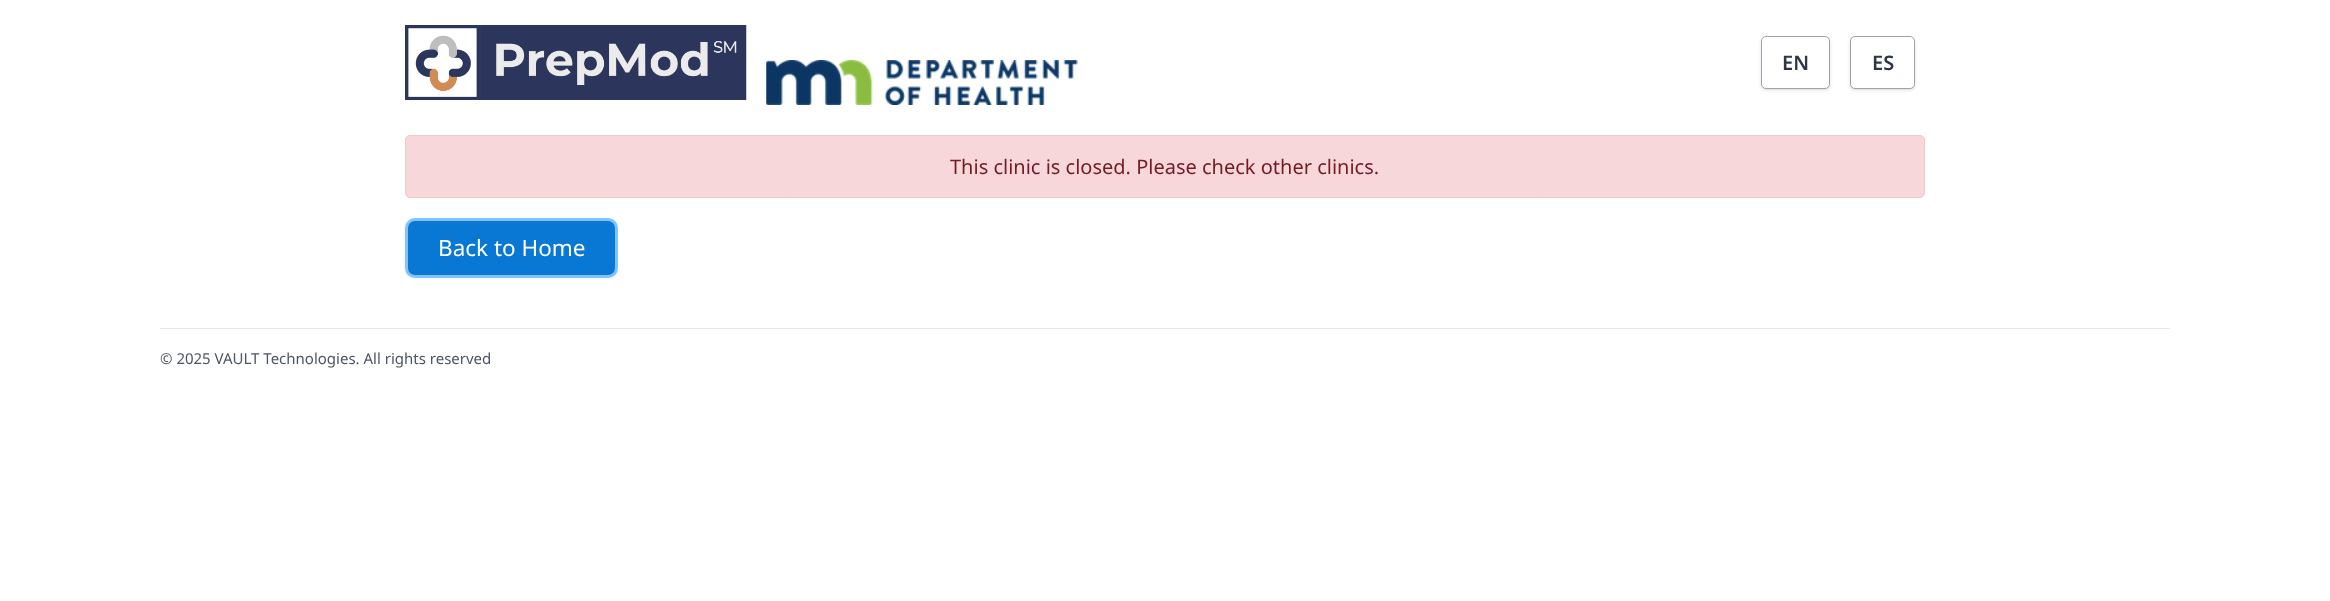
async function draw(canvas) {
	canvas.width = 2330;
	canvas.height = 601;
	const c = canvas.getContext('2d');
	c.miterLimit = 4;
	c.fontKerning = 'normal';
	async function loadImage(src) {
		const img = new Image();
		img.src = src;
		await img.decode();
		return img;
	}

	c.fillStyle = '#fff';
	c.fillRect(0, 0, 2330, 601);
	c.drawImage(await loadImage('img1.png'), 405, 25, 342, 75);
	c.drawImage(await loadImage('img2.png'), 766, 60, 312, 45);
	c.fillStyle = '#0000001a';
	c.filter = 'blur(1px)';
	c.beginPath();
	c.roundRect(1763, 39, 66, 50, 4);
	c.fill();
	c.filter = 'none';
	c.filter = 'blur(2px)';
	c.beginPath();
	c.roundRect(1761, 38, 69, 52, 5);
	c.fill();
	c.filter = 'none';
	c.fillStyle = '#fff';
	c.beginPath();
	c.roundRect(1761.5, 36.5, 68, 52, 4.5);
	c.fill();
	c.strokeStyle = '#9ca3af';
	c.stroke();
	c.font = '600 20px Noto Sans';
	c.fillStyle = '#2d3748';
	c.fillText('EN', 1782, 70);
	c.fillStyle = '#0000001a';
	c.filter = 'blur(1px)';
	c.beginPath();
	c.roundRect(1851, 39, 63, 50, 4);
	c.fill();
	c.filter = 'none';
	c.filter = 'blur(2px)';
	c.beginPath();
	c.roundRect(1850, 38, 65, 52, 5);
	c.fill();
	c.filter = 'none';
	c.fillStyle = '#fff';
	c.beginPath();
	c.roundRect(1850.5, 36.5, 64, 52, 4.5);
	c.fill();
	c.stroke();
	c.fillStyle = '#2d3748';
	c.fillText('ES', 1872, 70);
	c.fillStyle = '#f8d7da';
	c.beginPath();
	c.roundRect(405.5, 135.5, 1519, 62, 4.5);
	c.fill();
	c.strokeStyle = '#f5c6cb';
	c.stroke();
	c.font = '20px Noto Sans';
	c.fillStyle = '#721c24';
	c.fillText('This clinic is closed. Please check other clinics.', 950, 174);
	c.fillStyle = '#0000000d';
	c.filter = 'blur(1px)';
	c.beginPath();
	c.roundRect(405, 219, 213, 60, 8);
	c.fill();
	c.filter = 'none';
	c.fillStyle = '#0878d4';
	c.beginPath();
	c.roundRect(406.5, 219.5, 210, 57, 8.5);
	c.fill();
	c.strokeStyle = '#7fc4fd';
	c.lineWidth = 3;
	c.stroke();
	c.font = '22.5px Noto Sans';
	c.fillStyle = '#fff';
	c.fillText('Back to Home', 438, 256);
	c.fillStyle = '#e2e8f0';
	c.fillRect(160, 328, 2010, 1);
	c.font = '15px Noto Sans';
	c.fillStyle = '#4b5563';
	c.fillText('© 2025 VAULT Technologies. All rights reserved', 160, 364);
}

draw(document.querySelector('canvas'));
